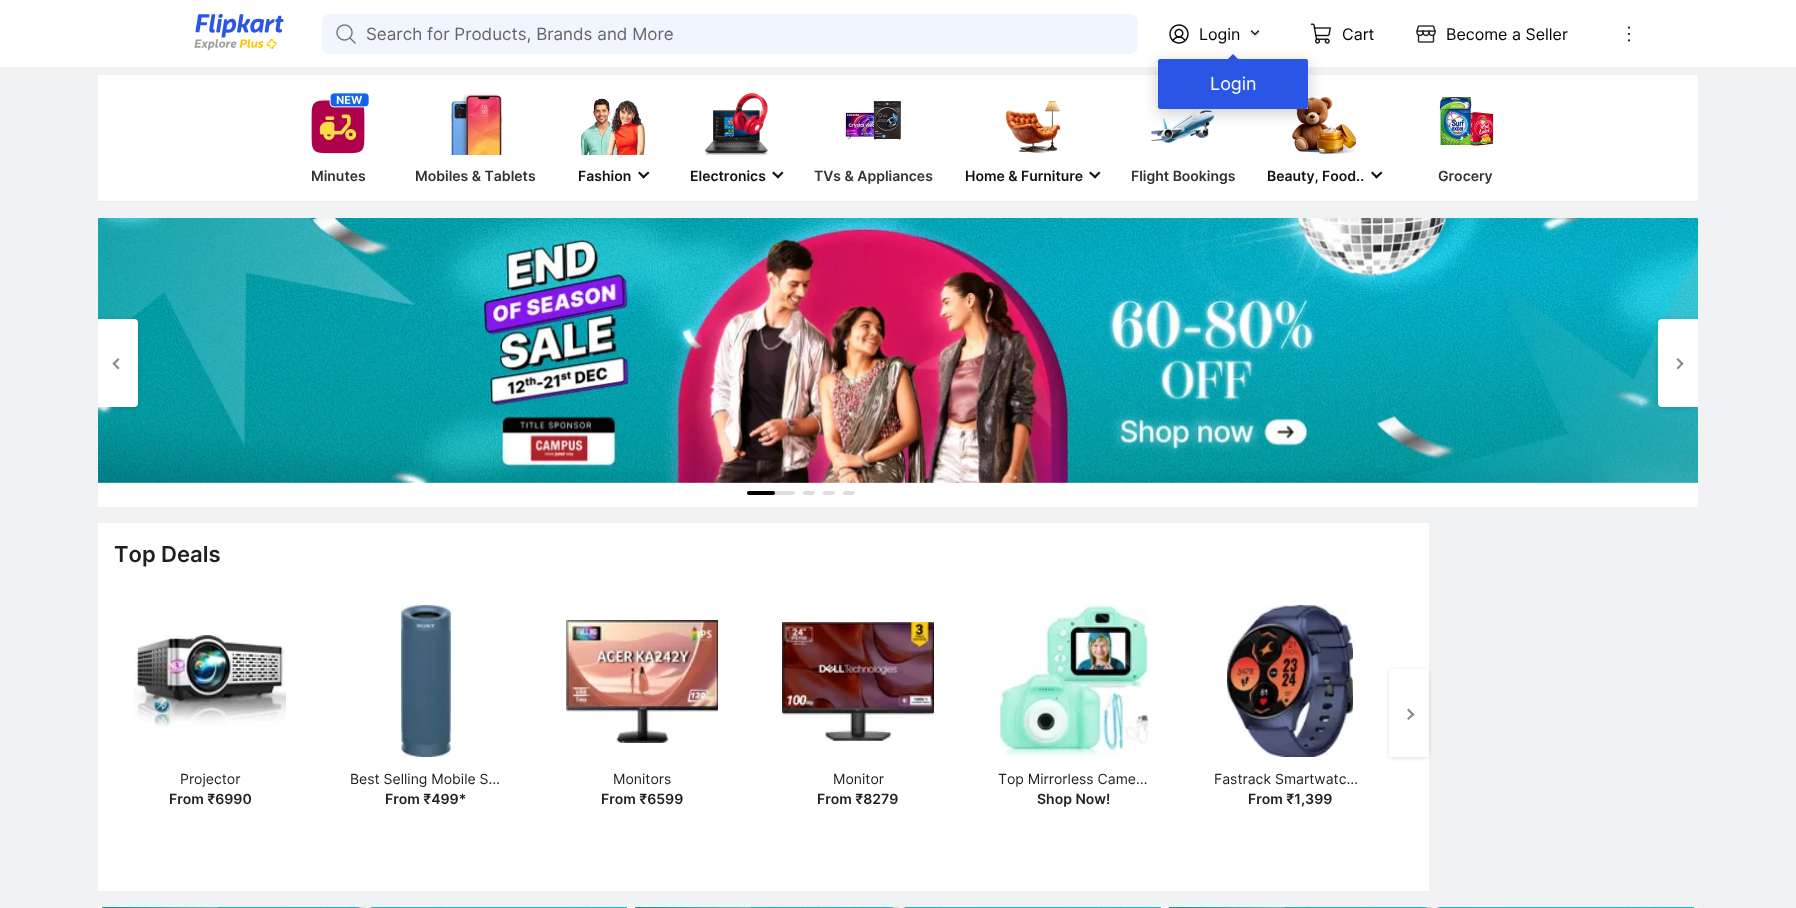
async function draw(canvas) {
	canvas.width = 1796;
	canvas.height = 908;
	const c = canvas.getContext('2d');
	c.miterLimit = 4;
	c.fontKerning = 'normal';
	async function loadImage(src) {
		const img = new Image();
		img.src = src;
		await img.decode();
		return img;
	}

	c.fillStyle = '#f1f2f4';
	c.fillRect(0, 0, 1796, 908);
	c.fillStyle = '#fff';
	c.fillRect(0, 0, 1796, 67);
	c.drawImage(await loadImage('img1.png'), 194, 14, 90, 36);
	c.fillStyle = '#f0f5ff';
	c.beginPath();
	c.roundRect(322, 14, 816, 40, 8);
	c.fill();
	c.drawImage(await loadImage('img2.png'), 336, 24, 20, 20);
	c.font = '17px Inter';
	c.fillStyle = '#666';
	c.fillText('Search for Products, Brands and More', 366, 40);
	c.drawImage(await loadImage('img3.png'), 1169, 24, 20, 20);
	c.font = '16px Inter';
	c.fillStyle = '#000';
	c.fillText('Login', 1199, 40);
	c.drawImage(await loadImage('img4.png'), 1249, 30, 12, 8);
	c.fillStyle = '#2a55e5';
	c.beginPath();
	c.moveTo(1238, 59);
	c.lineTo(1228, 59);
	c.lineTo(1233, 54);
	c.closePath();
	c.fill();
	c.drawImage(await loadImage('img5.png'), 1310, 23, 21, 21);
	c.fillStyle = '#fff';
	c.fillRect(98, 75, 1600, 126);
	c.drawImage(await loadImage('img14.png'), 1151, 109, 64, 34);
	c.drawImage(await loadImage('img15.png'), 1292, 96, 64, 59);
	c.fillStyle = '#00000033';
	c.filter = 'blur(8px)';
	c.beginPath();
	c.rect(1158, 63, 150, 50);
	c.fill();
	c.filter = 'none';
	c.fillStyle = '#fff';
	c.fillRect(1158, 59, 150, 50);
	c.fillStyle = '#2a55e5';
	c.beginPath();
	c.roundRect(1158, 59, 150, 50, 2);
	c.fill();
	c.font = '18px Inter';
	c.fillStyle = '#fff';
	c.fillText('Login', 1210, 90);
	c.font = '16px Inter';
	c.fillStyle = '#000';
	c.fillText('Cart', 1342, 40);
	c.drawImage(await loadImage('img6.png'), 1416, 25, 20, 18);
	c.fillText('Become a Seller', 1446, 40);
	c.drawImage(await loadImage('img7.png'), 1627, 26, 4, 16);
	c.drawImage(await loadImage('img8.png'), 311, 92, 59, 62);
	c.font = '600 14px Inter';
	c.fillStyle = '#333';
	c.fillText('Minutes', 311, 181);
	c.drawImage(await loadImage('img9.png'), 451, 93, 51, 62);
	c.fillText('Mobiles & Tablets', 415, 181);
	c.drawImage(await loadImage('img10.png'), 581, 98, 64, 57);
	c.fillStyle = '#111112';
	c.fillText('Fashion', 578, 181);
	c.beginPath();
	c.moveTo(648, 171.5);
	c.lineTo(649.5, 173);
	c.lineTo(643.5, 178.5);
	c.lineTo(642, 177);
	c.closePath();
	c.fill();
	c.beginPath();
	c.moveTo(639.5, 171.5);
	c.lineTo(645, 177);
	c.lineTo(643.5, 178.5);
	c.lineTo(638, 173);
	c.closePath();
	c.fill();
	c.drawImage(await loadImage('img11.png'), 704, 93, 64, 62);
	c.fillText('Electronics', 690, 181);
	c.beginPath();
	c.moveTo(782, 171.5);
	c.lineTo(783.5, 173);
	c.lineTo(778, 178.5);
	c.lineTo(776.5, 177);
	c.closePath();
	c.fill();
	c.beginPath();
	c.moveTo(773.5, 171.5);
	c.lineTo(779.5, 177);
	c.lineTo(778, 178.5);
	c.lineTo(772, 173);
	c.closePath();
	c.fill();
	c.drawImage(await loadImage('img12.png'), 845, 101, 56, 39);
	c.fillStyle = '#333';
	c.fillText('TVs & Appliances', 814, 181);
	c.drawImage(await loadImage('img13.png'), 1006, 101, 54, 53);
	c.fillStyle = '#111112';
	c.fillText('Home & Furniture', 965, 181);
	c.beginPath();
	c.moveTo(1099, 171.5);
	c.lineTo(1100.5, 173);
	c.lineTo(1095, 178.5);
	c.lineTo(1093.5, 177);
	c.closePath();
	c.fill();
	c.beginPath();
	c.moveTo(1090.5, 171.5);
	c.lineTo(1096.5, 177);
	c.lineTo(1095, 178.5);
	c.lineTo(1089, 173);
	c.closePath();
	c.fill();
	c.fillStyle = '#333';
	c.fillText('Flight Bookings', 1131, 181);
	c.fillStyle = '#111112';
	c.fillText('Beauty, Food..', 1267, 181);
	c.beginPath();
	c.moveTo(1381, 171.5);
	c.lineTo(1382.5, 173);
	c.lineTo(1376.5, 178.5);
	c.lineTo(1375, 177);
	c.closePath();
	c.fill();
	c.beginPath();
	c.moveTo(1372.5, 171.5);
	c.lineTo(1378, 177);
	c.lineTo(1376.5, 178.5);
	c.lineTo(1371, 173);
	c.closePath();
	c.fill();
	c.drawImage(await loadImage('img16.png'), 1439, 97, 55, 49);
	c.fillStyle = '#333';
	c.fillText('Grocery', 1438, 181);
	c.fillStyle = '#eaeaea';
	c.fillRect(98, 201, 1600, 1);
	c.fillStyle = '#fff';
	c.fillRect(98, 218, 1600, 289);
	c.drawImage(await loadImage('img17.png'), 98, 218, 1600, 265);
	c.save();
	c.beginPath();
	c.rect(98, 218, 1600, 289);
	c.clip();
	c.fillStyle = '#0000001f';
	c.filter = 'blur(2px)';
	c.beginPath();
	c.roundRect(98, 320, 40, 88, 4);
	c.fill();
	c.filter = 'none';
	c.restore();
	c.beginPath();
	c.roundRect(98, 319, 40, 88, [0, 4, 4, 0]);
	c.fill();
	c.fillStyle = '#878787';
	c.beginPath();
	c.moveTo(118, 369.5);
	c.lineTo(112.5, 363.5);
	c.lineTo(114, 362.5);
	c.lineTo(119.5, 368);
	c.closePath();
	c.fill();
	c.beginPath();
	c.moveTo(114, 365);
	c.lineTo(112.5, 363.5);
	c.lineTo(118, 358);
	c.lineTo(119.5, 359.5);
	c.closePath();
	c.fill();
	c.save();
	c.beginPath();
	c.rect(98, 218, 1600, 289);
	c.clip();
	c.fillStyle = '#0000001f';
	c.filter = 'blur(2px)';
	c.beginPath();
	c.roundRect(1658, 320, 40, 88, 4);
	c.fill();
	c.filter = 'none';
	c.restore();
	c.fillStyle = '#fff';
	c.beginPath();
	c.roundRect(1658, 319, 40, 88, [4, 0, 0, 4]);
	c.fill();
	c.fillStyle = '#878787';
	c.beginPath();
	c.moveTo(1678, 358);
	c.lineTo(1683.5, 363.5);
	c.lineTo(1682, 365);
	c.lineTo(1676.5, 359.5);
	c.closePath();
	c.fill();
	c.beginPath();
	c.moveTo(1682, 362.5);
	c.lineTo(1683.5, 363.5);
	c.lineTo(1678, 369.5);
	c.lineTo(1676.5, 368);
	c.closePath();
	c.fill();
	c.fillStyle = '#dedede';
	c.beginPath();
	c.roundRect(747, 491, 48, 4, 2);
	c.fill();
	c.fillStyle = '#000';
	c.beginPath();
	c.roundRect(747, 491, 28, 4, 2);
	c.fill();
	c.fillStyle = '#dedede';
	c.beginPath();
	c.roundRect(803, 491, 12, 4, 2);
	c.fill();
	c.beginPath();
	c.roundRect(823, 491, 12, 4, 2);
	c.fill();
	c.beginPath();
	c.roundRect(843, 491, 12, 4, 2);
	c.fill();
	c.fillStyle = '#fff';
	c.fillRect(98, 523, 1331, 368);
	c.font = '600 22px Inter';
	c.fillStyle = '#1f1f1f';
	c.fillText('Top Deals', 114, 562);
	c.fillStyle = '#0000001f';
	c.filter = 'blur(2px)';
	c.beginPath();
	c.roundRect(1389, 670, 40, 88, 4);
	c.fill();
	c.filter = 'none';
	c.fillStyle = '#fff';
	c.beginPath();
	c.roundRect(1389, 669, 40, 88, [4, 0, 0, 4]);
	c.fill();
	c.fillStyle = '#878787';
	c.beginPath();
	c.moveTo(1408.5, 708.5);
	c.lineTo(1414.5, 714.5);
	c.lineTo(1413, 716);
	c.lineTo(1407, 710);
	c.closePath();
	c.fill();
	c.beginPath();
	c.moveTo(1413, 713);
	c.lineTo(1414.5, 714.5);
	c.lineTo(1408.5, 720);
	c.lineTo(1407, 718.5);
	c.closePath();
	c.fill();
	c.drawImage(await loadImage('img18.png'), 134, 635, 152, 93);
	c.font = '14px Inter';
	c.fillStyle = '#1f1f1f';
	c.fillText('Projector', 180, 784);
	c.font = '600 14px Inter';
	c.fillText('From ₹6990', 169, 804);
	c.drawImage(await loadImage('img19.png'), 401, 605, 50, 152);
	c.font = '14px Inter';
	c.fillText('Best Selling Mobile S…', 350, 784);
	c.font = '600 14px Inter';
	c.fillText('From ₹499*', 385, 804);
	c.drawImage(await loadImage('img20.png'), 566, 620, 152, 123);
	c.font = '14px Inter';
	c.fillText('Monitors', 613, 784);
	c.font = '600 14px Inter';
	c.fillText('From ₹6599', 601, 804);
	c.drawImage(await loadImage('img21.png'), 782, 622, 152, 119);
	c.font = '14px Inter';
	c.fillText('Monitor', 833, 784);
	c.font = '600 14px Inter';
	c.fillText('From ₹8279', 817, 804);
	c.drawImage(await loadImage('img22.png'), 999, 605, 150, 152);
	c.font = '14px Inter';
	c.fillText('Top Mirrorless Came…', 998, 784);
	c.font = '600 14px Inter';
	c.fillText('Shop Now!', 1037, 804);
	c.drawImage(await loadImage('img23.png'), 1227, 605, 126, 152);
	c.font = '14px Inter';
	c.fillText('Fastrack Smartwatc…', 1214, 784);
	c.font = '600 14px Inter';
	c.fillText('From ₹1,399', 1248, 804);
	c.fillStyle = '#fff';
	c.fillRect(98, 907, 1600, 1);
	c.drawImage(await loadImage('img24.png'), 102, 907, 525, 1);
	c.drawImage(await loadImage('img25.png'), 635, 907, 526, 1);
	c.drawImage(await loadImage('img26.png'), 1169, 907, 525, 1);
}

draw(document.querySelector('canvas'));
